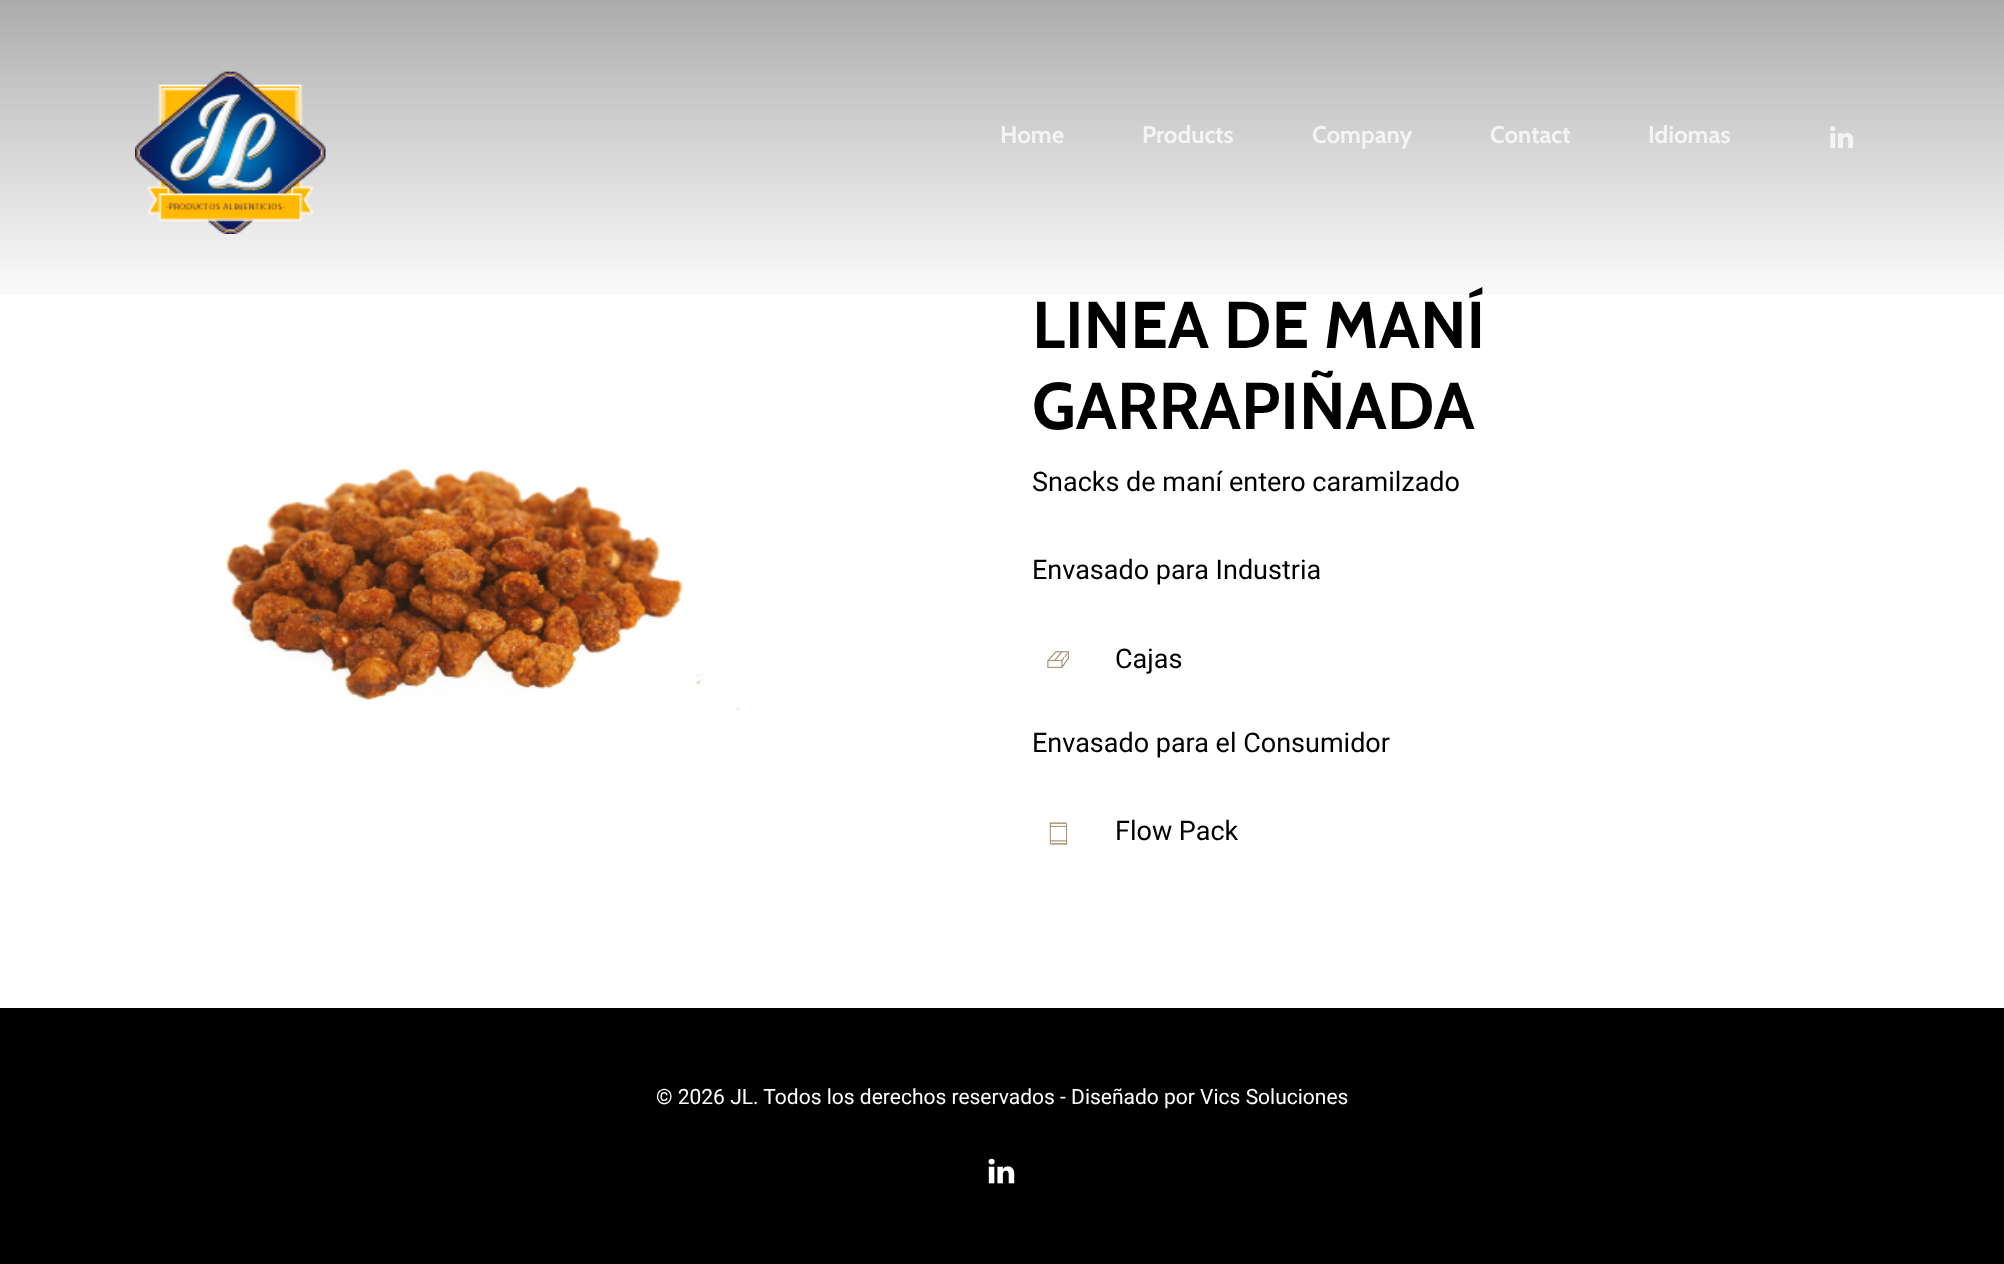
async function draw(canvas) {
	canvas.width = 2004;
	canvas.height = 1264;
	const c = canvas.getContext('2d');
	c.miterLimit = 4;
	c.fontKerning = 'normal';
	async function loadImage(src) {
		const img = new Image();
		img.src = src;
		await img.decode();
		return img;
	}
	let gradient;

	c.fillStyle = '#fff';
	c.fillRect(0, 0, 2004, 1264);
	c.font = 'bold 66px Cabin';
	c.fillStyle = '#000';
	c.fillText('LINEA DE MANÍ', 1032, 348);
	gradient = c.createLinearGradient(1002, 324, 1002, 0);
	gradient.addColorStop(0, '#ffffff00');
	gradient.addColorStop(0.01, '#00000000');
	gradient.addColorStop(0.16, '#0000000a');
	gradient.addColorStop(0.75, '#0000003b');
	gradient.addColorStop(1, '#00000054');
	c.fillStyle = gradient;
	c.fillRect(0, 0, 2004, 295);
	c.drawImage(await loadImage('img1.png'), 135, 71, 191, 163);
	c.font = 'bold 24px Cabin';
	c.fillStyle = '#f4f4f4';
	for (const [text, x, y] of [
		['Home', 1000, 143],
		['Products', 1142, 143],
		['Company', 1312, 143],
		['Contact', 1490, 143],
		['Idiomas', 1648, 143],
	]) {
		c.fillText(text, x, y);
	}
	c.drawImage(await loadImage('img2.png'), 1830, 126, 24, 23);
	c.drawImage(await loadImage('img3.png'), 138, 345, 602, 367);
	c.font = 'bold 66px Cabin';
	c.fillStyle = '#000';
	c.fillText('GARRAPIÑADA', 1032, 429);
	c.font = '27px Roboto';
	c.fillText('Snacks de maní entero caramilzado', 1032, 491);
	c.fillText('Envasado para Industria', 1032, 579);
	c.drawImage(await loadImage('img4.png'), 1047, 651, 22, 17);
	c.fillText('Cajas', 1115, 668);
	c.fillText('Envasado para el Consumidor', 1032, 752);
	c.drawImage(await loadImage('img5.png'), 1049, 822, 19, 24);
	c.fillText('Flow Pack', 1115, 840);
	c.fillRect(0, 1008, 2004, 256);
	c.font = '21px Roboto';
	c.fillStyle = '#fff';
	c.fillText('© 2026 JL. Todos los derechos reservados - Diseñado por Vics Soluciones', 656, 1104);
	c.drawImage(await loadImage('img6.png'), 988, 1158, 27, 26);
}

draw(document.querySelector('canvas'));
